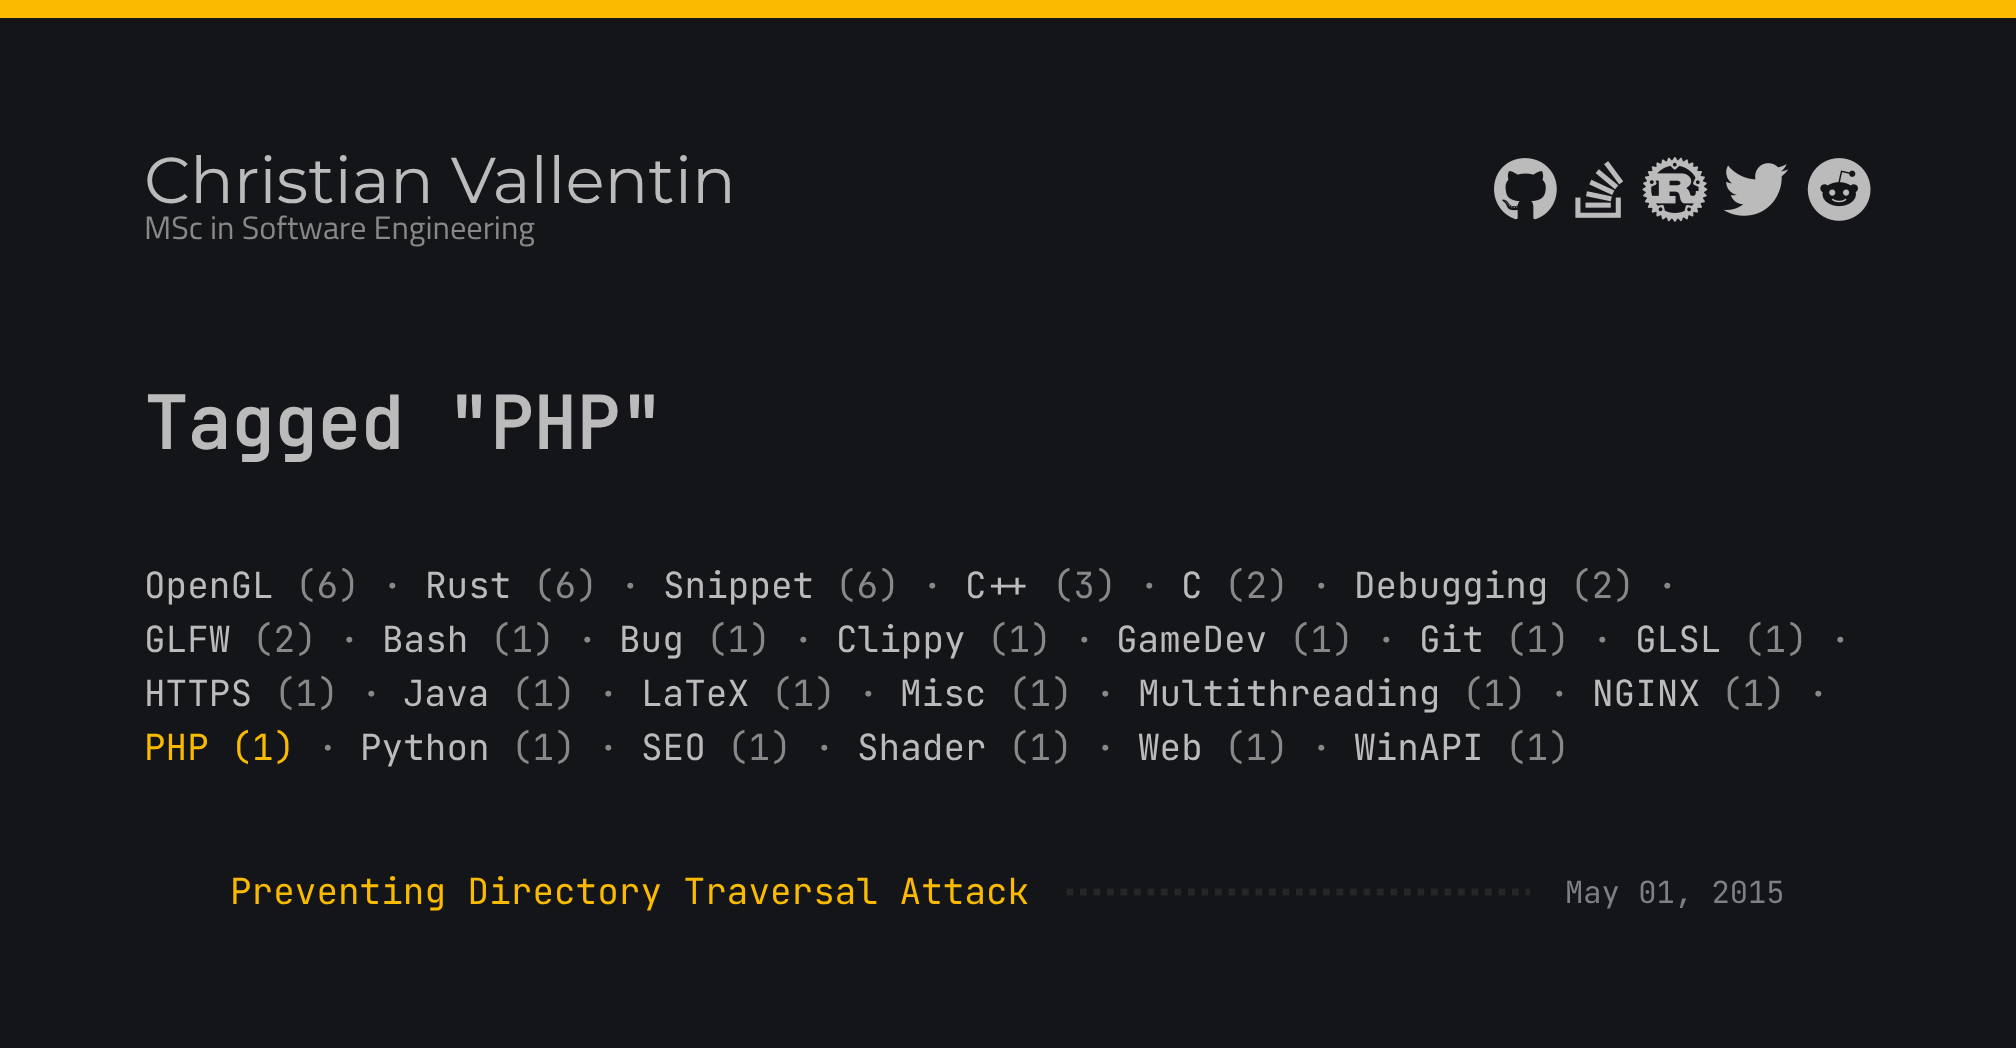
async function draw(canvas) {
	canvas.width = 2016;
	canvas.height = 1048;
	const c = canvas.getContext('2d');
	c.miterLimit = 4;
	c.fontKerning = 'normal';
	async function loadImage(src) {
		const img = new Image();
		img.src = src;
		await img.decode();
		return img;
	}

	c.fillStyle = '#141518';
	c.fillRect(0, 0, 2016, 1048);
	c.fillStyle = '#f9ba00';
	c.fillRect(0, 0, 2016, 18);
	c.font = '100 64.75px Montserrat';
	c.fillStyle = '#bbb';
	c.fillText('Christian Vallentin', 144, 203);
	c.font = '32.4px Titillium Web';
	c.fillStyle = '#888';
	c.fillText('MSc in Software Engineering', 144, 239);
	c.drawImage(await loadImage('img1.png'), 1494, 158, 63, 62);
	c.drawImage(await loadImage('img2.png'), 1575, 161, 49, 57);
	c.drawImage(await loadImage('img3.png'), 1642, 157, 66, 65);
	c.drawImage(await loadImage('img4.png'), 1723, 163, 66, 53);
	c.drawImage(await loadImage('img5.png'), 1807, 158, 64, 63);
	c.font = 'bold 72px JetBrains Mono';
	c.fillStyle = '#bbb';
	c.fillText('Tagged "PHP"', 144, 449);
	c.font = '36px JetBrains Mono';
	c.fillText('OpenGL', 144, 598);
	c.fillStyle = '#888';
	c.fillText('(6) ·', 295, 598);
	c.fillStyle = '#bbb';
	c.fillText('Rust', 425, 598);
	c.fillStyle = '#888';
	c.fillText('(6) ·', 533, 598);
	c.fillStyle = '#bbb';
	c.fillText('Snippet', 663, 598);
	c.fillStyle = '#888';
	c.fillText('(6) ·', 835, 598);
	c.fillStyle = '#bbb';
	c.fillText('C++', 965, 598);
	c.fillStyle = '#888';
	c.fillText('(3) ·', 1052, 598);
	c.fillStyle = '#bbb';
	c.fillText('C', 1181, 598);
	c.fillStyle = '#888';
	c.fillText('(2) ·', 1224, 598);
	c.fillStyle = '#bbb';
	c.fillText('Debugging', 1354, 598);
	c.fillStyle = '#888';
	c.fillText('(2) ·', 1570, 598);
	c.fillStyle = '#bbb';
	c.fillText('GLFW', 144, 652);
	c.fillStyle = '#888';
	c.fillText('(2) ·', 252, 652);
	c.fillStyle = '#bbb';
	c.fillText('Bash', 382, 652);
	c.fillStyle = '#888';
	c.fillText('(1) ·', 490, 652);
	c.fillStyle = '#bbb';
	c.fillText('Bug', 619, 652);
	c.fillStyle = '#888';
	c.fillText('(1) ·', 706, 652);
	c.fillStyle = '#bbb';
	c.fillText('Clippy', 836, 652);
	c.fillStyle = '#888';
	c.fillText('(1) ·', 987, 652);
	c.fillStyle = '#bbb';
	c.fillText('GameDev', 1116, 652);
	c.fillStyle = '#888';
	c.fillText('(1) ·', 1289, 652);
	c.fillStyle = '#bbb';
	c.fillText('Git', 1419, 652);
	c.fillStyle = '#888';
	c.fillText('(1) ·', 1505, 652);
	c.fillStyle = '#bbb';
	c.fillText('GLSL', 1635, 652);
	c.fillStyle = '#888';
	c.fillText('(1) ·', 1743, 652);
	c.fillStyle = '#bbb';
	c.fillText('HTTPS', 144, 706);
	c.fillStyle = '#888';
	c.fillText('(1) ·', 274, 706);
	c.fillStyle = '#bbb';
	c.fillText('Java', 403, 706);
	c.fillStyle = '#888';
	c.fillText('(1) ·', 511, 706);
	c.fillStyle = '#bbb';
	c.fillText('LaTeX', 641, 706);
	c.fillStyle = '#888';
	c.fillText('(1) ·', 771, 706);
	c.fillStyle = '#bbb';
	c.fillText('Misc', 900, 706);
	c.fillStyle = '#888';
	c.fillText('(1) ·', 1008, 706);
	c.fillStyle = '#bbb';
	c.fillText('Multithreading', 1138, 706);
	c.fillStyle = '#888';
	c.fillText('(1) ·', 1462, 706);
	c.fillStyle = '#bbb';
	c.fillText('NGINX', 1592, 706);
	c.fillStyle = '#888';
	c.fillText('(1) ·', 1721, 706);
	c.fillStyle = '#f9ba00';
	c.fillText('PHP (1)', 144, 760);
	c.fillStyle = '#888';
	c.fillText('·', 317, 760);
	c.fillStyle = '#bbb';
	c.fillText('Python', 360, 760);
	c.fillStyle = '#888';
	c.fillText('(1) ·', 511, 760);
	c.fillStyle = '#bbb';
	c.fillText('SEO', 641, 760);
	c.fillStyle = '#888';
	c.fillText('(1) ·', 727, 760);
	c.fillStyle = '#bbb';
	c.fillText('Shader', 857, 760);
	c.fillStyle = '#888';
	c.fillText('(1) ·', 1008, 760);
	c.fillStyle = '#bbb';
	c.fillText('Web', 1138, 760);
	c.fillStyle = '#888';
	c.fillText('(1) ·', 1224, 760);
	c.fillStyle = '#bbb';
	c.fillText('WinAPI', 1354, 760);
	c.fillStyle = '#888';
	c.fillText('(1)', 1505, 760);
	c.fillStyle = '#f9ba00';
	c.fillText('Preventing Directory Traversal Attack', 230, 904);
	c.beginPath();
	c.moveTo(1066.5, 892);
	c.lineTo(1530, 892);
	c.strokeStyle = '#252628';
	c.lineWidth = 6.8;
	c.setLineDash([6.75, 6.75]);
	c.stroke();
	c.font = '30.5px JetBrains Mono';
	c.fillStyle = '#7c7f83';
	c.fillText('May 01, 2015', 1565, 903);
}

draw(document.querySelector('canvas'));
